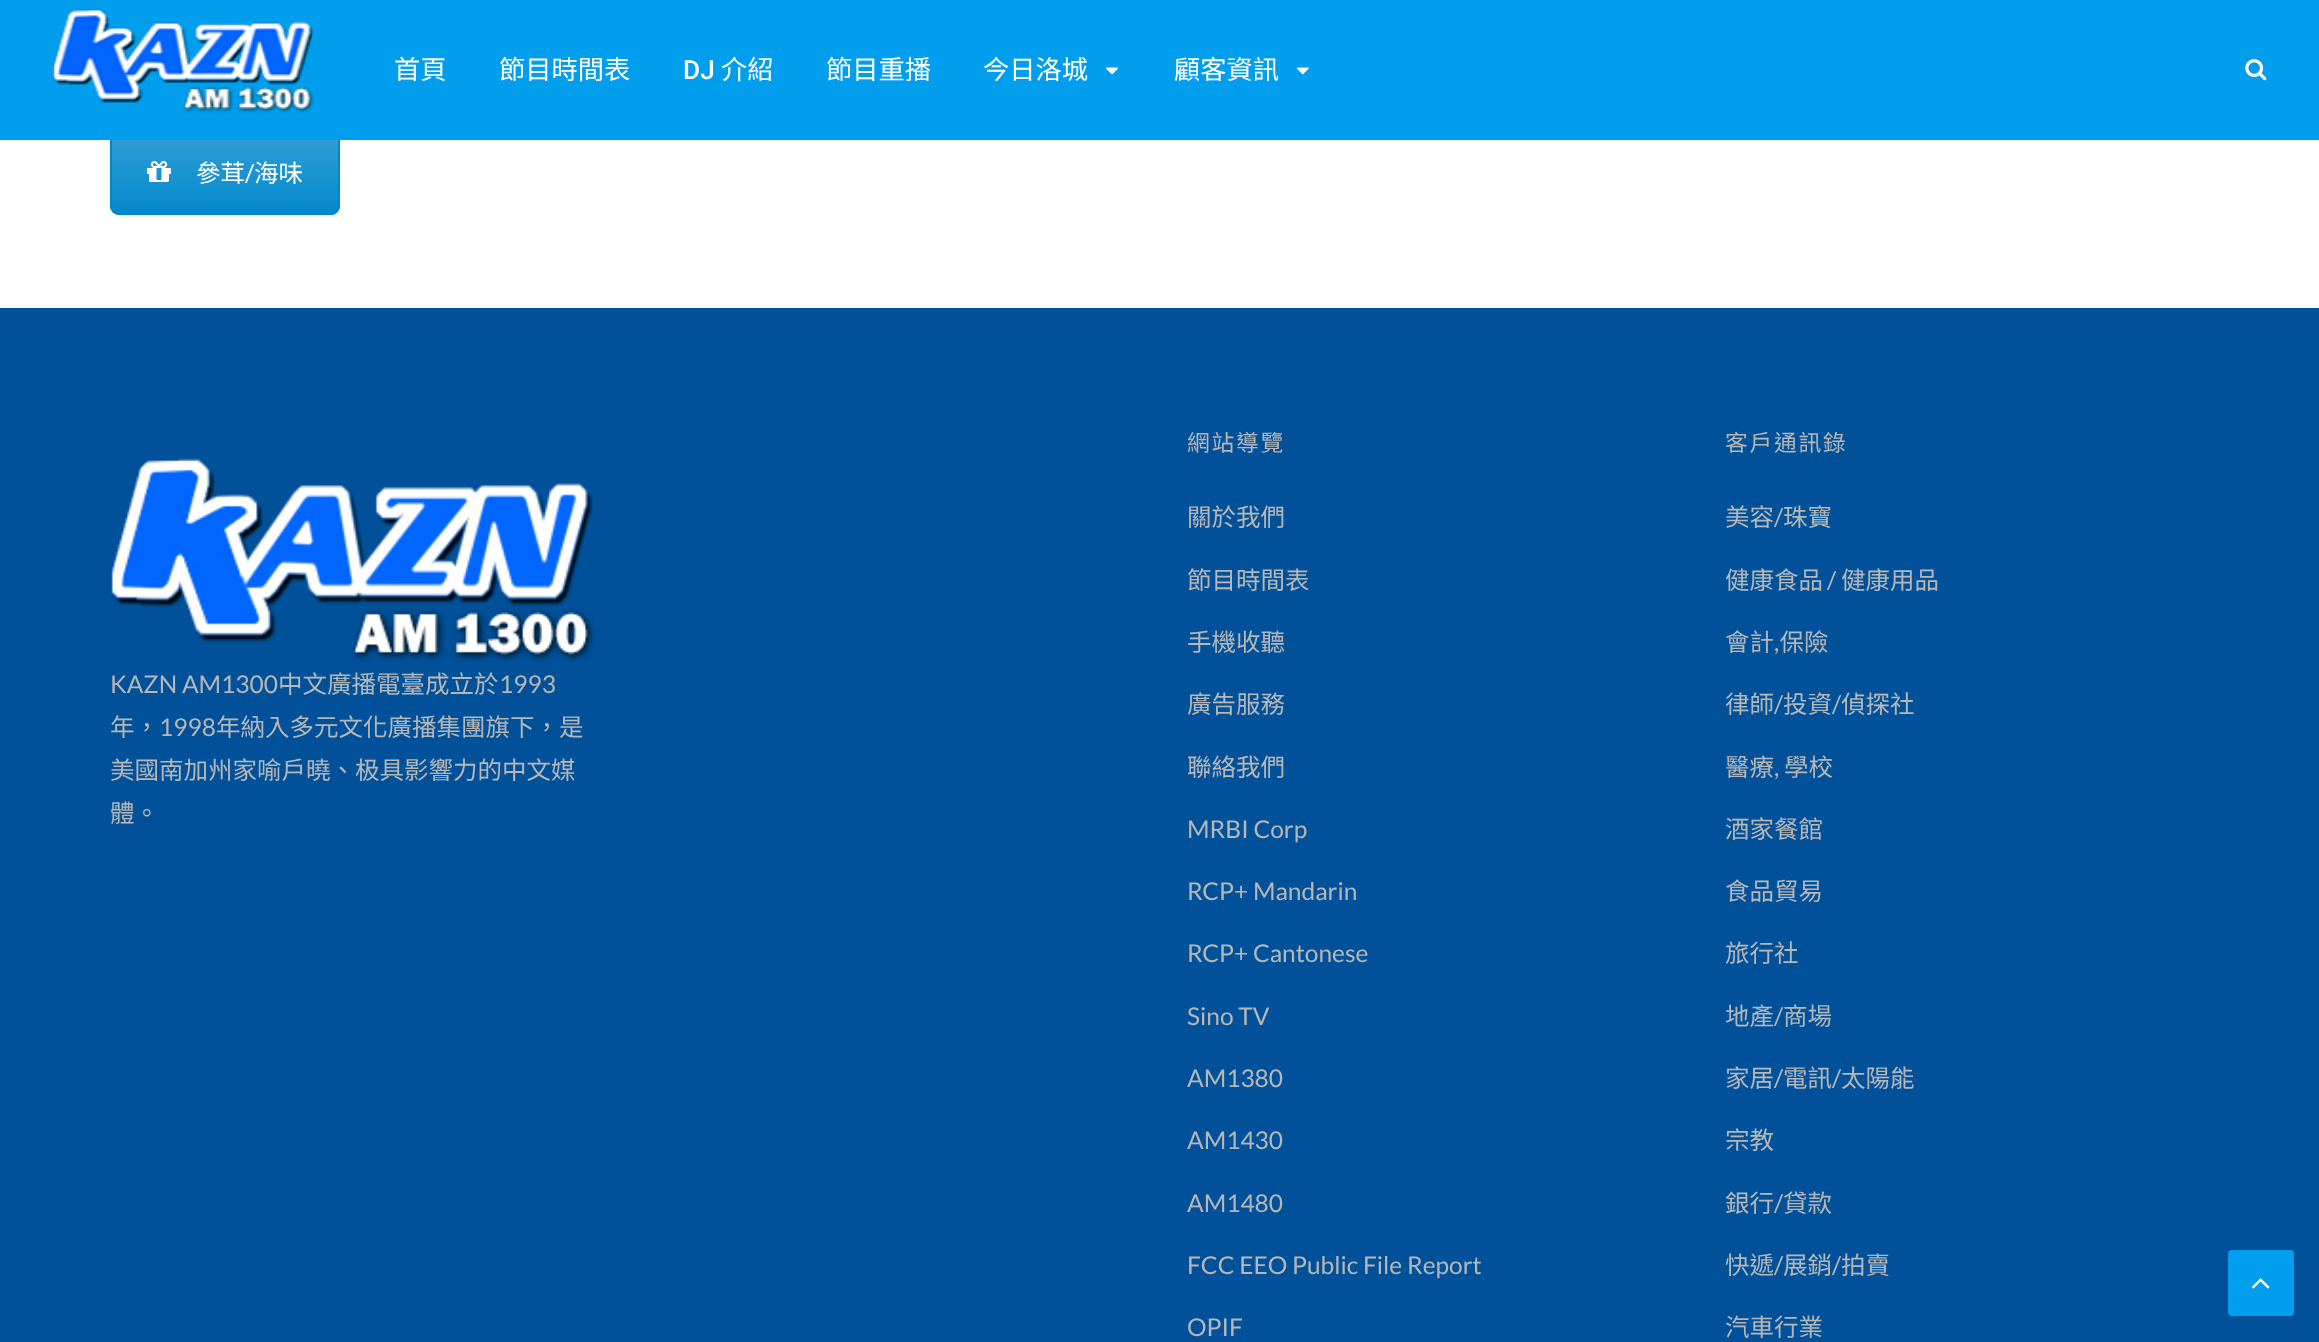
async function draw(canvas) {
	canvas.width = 2319;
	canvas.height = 1342;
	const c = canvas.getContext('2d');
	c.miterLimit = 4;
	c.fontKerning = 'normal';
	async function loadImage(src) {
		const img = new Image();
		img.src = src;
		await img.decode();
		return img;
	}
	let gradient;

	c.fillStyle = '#fff';
	c.fillRect(0, 0, 2319, 1342);
	c.fillStyle = '#08c';
	c.beginPath();
	c.roundRect(110, 128, 230, 87, 9);
	c.fill();
	gradient = c.createLinearGradient(225, 130, 225, 214);
	gradient.addColorStop(0, '#ffffff33');
	gradient.addColorStop(1, '#ffffff03');
	c.fillStyle = gradient;
	c.fillRect(110, 140, 230, 69);
	c.beginPath();
	c.roundRect(111, 129, 228, 85, 8);
	c.strokeStyle = '#08c';
	c.lineWidth = 2;
	c.stroke();
	c.fillStyle = '#009eed';
	c.fillRect(0, 0, 2319, 140);
	c.drawImage(await loadImage('img1.png'), 52, 8, 262, 105);
	c.font = '26.25px Noto Sans CJK TC';
	c.fillStyle = '#fff';
	c.fillText('首頁', 394, 79);
	c.fillText('節目時間表', 499, 79);
	c.font = '500 26.25px Roboto';
	c.fillText('DJ', 683, 79);
	c.font = '26.25px Noto Sans CJK TC';
	for (const [text, x, y] of [
		['介紹', 721, 79],
		['節目重播', 826, 79],
		['今日洛城', 983, 79],
	]) {
		c.fillText(text, x, y);
	}
	c.drawImage(await loadImage('img2.png'), 1106, 67, 12, 8);
	c.fillText('顧客資訊', 1174, 79);
	c.drawImage(await loadImage('img3.png'), 1296, 67, 13, 8);
	c.drawImage(await loadImage('img4.png'), 2245, 59, 22, 22);
	c.drawImage(await loadImage('img5.png'), 147, 161, 24, 21);
	c.font = '24.5px Noto Sans CJK TC';
	c.fillText('參茸', 196, 182);
	c.font = '24.5px Lato';
	c.fillText('/', 245, 182);
	c.font = '24.5px Noto Sans CJK TC';
	c.fillText('海味', 254, 182);
	c.fillStyle = '#005199';
	c.fillRect(0, 308, 2319, 1034);
	c.drawImage(await loadImage('img6.png'), 110, 458, 485, 204);
	c.font = '24.5px Lato';
	c.fillStyle = '#b7b7b7';
	c.fillText('KAZN AM1300', 110, 693);
	c.font = '24.5px Noto Sans CJK TC';
	c.fillText('中文廣播電臺成立於', 278, 693);
	c.font = '24.5px Lato';
	c.fillText('1993', 499, 693);
	c.font = '24.5px Noto Sans CJK TC';
	c.fillText('年，', 110, 736);
	c.font = '24.5px Lato';
	c.fillText('1998', 159, 736);
	c.font = '24.5px Noto Sans CJK TC';
	for (const [text, x, y] of [
		['年納入多元文化廣播集團旗下，是', 216, 736],
		['美國南加州家喻戶曉、极具影響力的中文媒', 110, 779],
		['體。', 110, 822],
	]) {
		c.fillText(text, x, y);
	}
	c.letterSpacing = '1.75px';
	c.font = '22.75px Noto Sans CJK TC';
	c.fillText('網站導覽', 1187, 451);
	c.letterSpacing = '0px';
	c.font = '24.5px Noto Sans CJK TC';
	for (const [text, x, y] of [
		['關於我們', 1187, 526],
		['節目時間表', 1187, 589],
		['手機收聽', 1187, 651],
		['廣告服務', 1187, 713],
		['聯絡我們', 1187, 776],
	]) {
		c.fillText(text, x, y);
	}
	c.font = '24.5px Lato';
	for (const [text, x, y] of [
		['MRBI Corp', 1187, 838],
		['RCP+ Mandarin', 1187, 900],
		['RCP+ Cantonese', 1187, 962],
		['Sino TV', 1187, 1025],
		['AM1380', 1187, 1087],
		['AM1430', 1187, 1149],
		['AM1480', 1187, 1212],
		['FCC EEO Public File Report', 1187, 1274],
		['OPIF', 1187, 1336],
	]) {
		c.fillText(text, x, y);
	}
	c.letterSpacing = '1.75px';
	c.font = '22.75px Noto Sans CJK TC';
	c.fillText('客戶通訊錄', 1725, 451);
	c.letterSpacing = '0px';
	c.font = '24.5px Noto Sans CJK TC';
	c.fillText('美容', 1725, 526);
	c.font = '24.5px Lato';
	c.fillText('/', 1774, 526);
	c.font = '24.5px Noto Sans CJK TC';
	c.fillText('珠寶', 1783, 526);
	c.fillText('健康食品', 1725, 589);
	c.font = '24.5px Lato';
	c.fillText('/', 1827, 589);
	c.font = '24.5px Noto Sans CJK TC';
	c.fillText('健康用品', 1841, 589);
	c.fillText('會計 保險', 1725, 651);
	c.font = '24.5px Lato';
	c.fillText(',', 1774, 651);
	c.font = '24.5px Noto Sans CJK TC';
	c.fillText('律師', 1725, 713);
	c.font = '24.5px Lato';
	c.fillText('/', 1774, 713);
	c.font = '24.5px Noto Sans CJK TC';
	c.fillText('投資', 1783, 713);
	c.font = '24.5px Lato';
	c.fillText('/', 1832, 713);
	c.font = '24.5px Noto Sans CJK TC';
	c.fillText('偵探社', 1841, 713);
	c.fillText('醫療', 1725, 776);
	c.font = '24.5px Lato';
	c.fillText(',', 1774, 776);
	c.font = '24.5px Noto Sans CJK TC';
	for (const [text, x, y] of [
		['學校', 1784, 776],
		['酒家餐館', 1725, 838],
		['食品貿易', 1725, 900],
		['旅行社', 1725, 962],
		['地產', 1725, 1025],
	]) {
		c.fillText(text, x, y);
	}
	c.font = '24.5px Lato';
	c.fillText('/', 1774, 1025);
	c.font = '24.5px Noto Sans CJK TC';
	c.fillText('商場', 1783, 1025);
	c.fillText('家居', 1725, 1087);
	c.font = '24.5px Lato';
	c.fillText('/', 1774, 1087);
	c.font = '24.5px Noto Sans CJK TC';
	c.fillText('電訊', 1783, 1087);
	c.font = '24.5px Lato';
	c.fillText('/', 1832, 1087);
	c.font = '24.5px Noto Sans CJK TC';
	for (const [text, x, y] of [
		['太陽能', 1841, 1087],
		['宗教', 1725, 1149],
		['銀行', 1725, 1212],
	]) {
		c.fillText(text, x, y);
	}
	c.font = '24.5px Lato';
	c.fillText('/', 1774, 1212);
	c.font = '24.5px Noto Sans CJK TC';
	c.fillText('貸款', 1783, 1212);
	c.fillText('快遞', 1725, 1274);
	c.font = '24.5px Lato';
	c.fillText('/', 1774, 1274);
	c.font = '24.5px Noto Sans CJK TC';
	c.fillText('展銷', 1783, 1274);
	c.font = '24.5px Lato';
	c.fillText('/', 1832, 1274);
	c.font = '24.5px Noto Sans CJK TC';
	c.fillText('拍賣', 1841, 1274);
	c.fillText('汽車行業', 1725, 1336);
	c.fillStyle = '#009eed';
	c.beginPath();
	c.roundRect(2228, 1250, 66, 66, 4);
	c.fill();
	c.drawImage(await loadImage('img7.png'), 2251, 1278, 19, 11);
}

draw(document.querySelector('canvas'));
